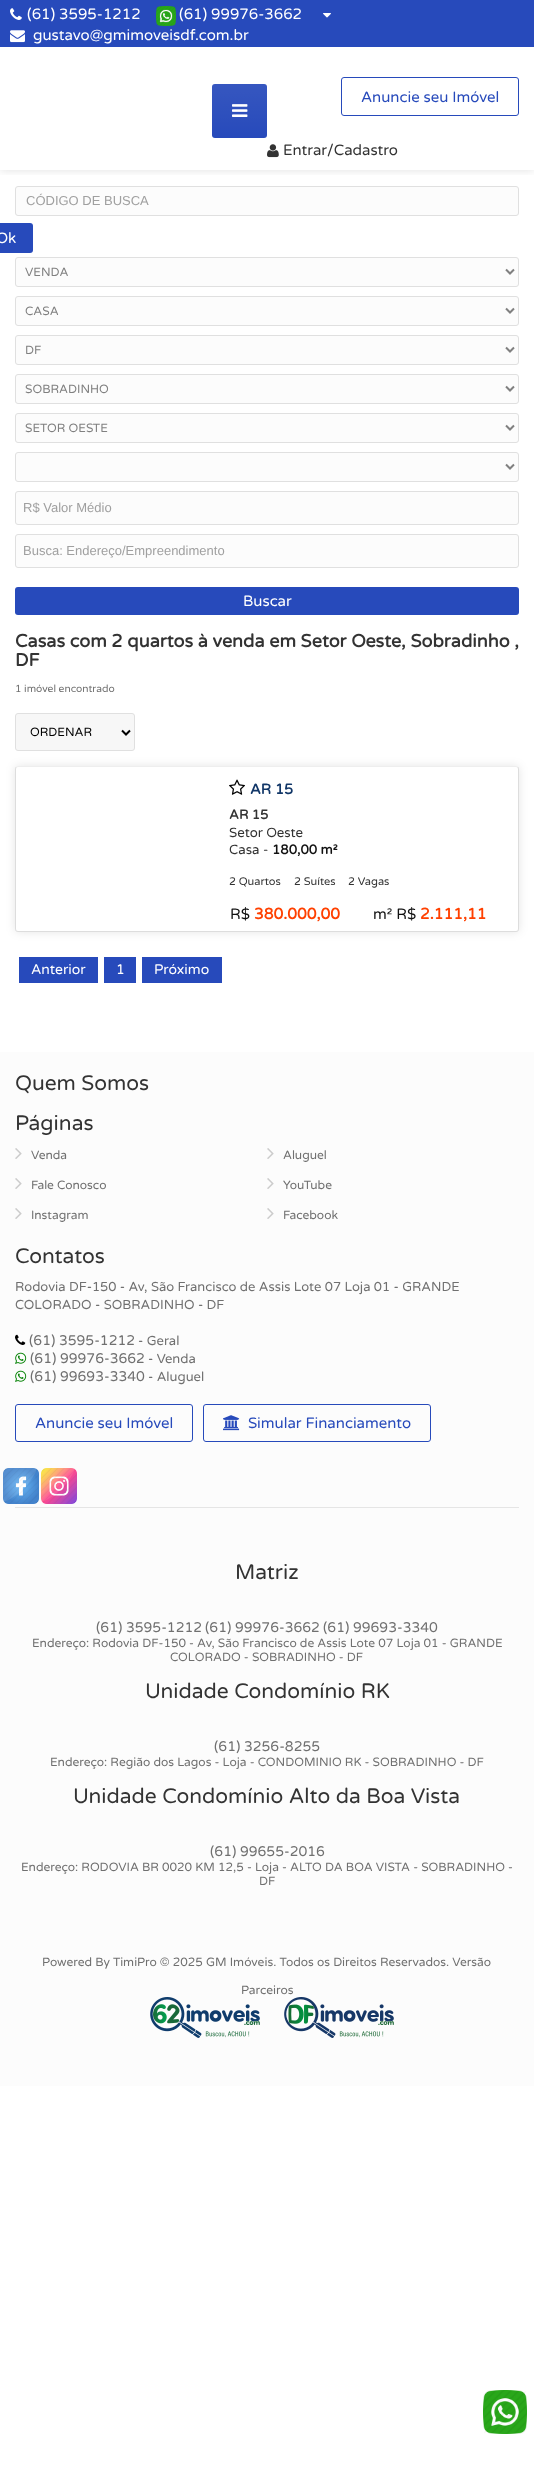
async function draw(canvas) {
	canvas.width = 534;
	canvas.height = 2484;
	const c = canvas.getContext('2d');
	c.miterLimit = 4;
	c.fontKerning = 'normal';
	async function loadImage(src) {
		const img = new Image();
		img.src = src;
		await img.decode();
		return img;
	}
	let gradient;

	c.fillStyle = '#fff';
	c.fillRect(0, 0, 534, 2484);
	c.save();
	c.beginPath();
	c.rect(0, 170, 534, 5);
	c.clip();
	c.fillStyle = '#0000001f';
	c.filter = 'blur(5px)';
	c.beginPath();
	c.rect(0, 47, 534, 123);
	c.fill();
	c.filter = 'none';
	c.restore();
	c.fillStyle = '#274abb';
	c.fillRect(0, 0, 534, 47);
	c.drawImage(await loadImage('img1.png'), 10, 8, 12, 12);
	c.font = '15px Varela Round';
	c.fillStyle = '#fff';
	c.fillText('(61) 3595-1212', 27, 19);
	c.drawImage(await loadImage('img2.png'), 156, 6, 20, 20);
	c.fillText('(61) 99976-3662', 179, 19);
	c.drawImage(await loadImage('img3.png'), 323, 13, 8, 5);
	c.drawImage(await loadImage('img4.png'), 10, 30, 15, 13);
	c.fillText('gustavo@gmimoveisdf.com.br', 33, 40);
	c.fillStyle = '#274abb';
	c.beginPath();
	c.roundRect(212, 84, 55, 54, 3);
	c.fill();
	gradient = c.createLinearGradient(240, 84, 240, 138);
	gradient.addColorStop(0, '#ffffff12');
	gradient.addColorStop(1, '#ffffff00');
	c.fillStyle = gradient;
	c.beginPath();
	c.roundRect(212, 84, 55, 54, 3);
	c.fill();
	c.drawImage(await loadImage('img5.png'), 232, 104, 16, 13);
	c.beginPath();
	c.roundRect(341.5, 77.5, 177, 38, 2.5);
	c.strokeStyle = '#274abb';
	c.stroke();
	c.fillStyle = '#274abb';
	c.fillText('Anuncie seu Imóvel', 361, 102);
	c.drawImage(await loadImage('img6.png'), 267, 144, 12, 14);
	c.fillStyle = '#333';
	c.fillText('Entrar/Cadastro', 283, 155);
	c.fillStyle = '#fcfcfc';
	c.beginPath();
	c.roundRect(15.5, 186.5, 503, 29, 2.5);
	c.fill();
	c.strokeStyle = '#e0e0e0';
	c.stroke();
	c.font = '13px Liberation Sans';
	c.fillStyle = '#a0a0a0';
	c.fillText('CÓDIGO DE BUSCA', 26, 205);
	c.fillStyle = '#274abb';
	c.beginPath();
	c.roundRect(-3, 223, 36, 30, 3);
	c.fill();
	c.font = '15px Varela Round';
	c.fillStyle = '#fff';
	c.fillText('Ok', -4, 243);
	c.fillStyle = '#fcfcfc';
	c.beginPath();
	c.roundRect(15.5, 257.5, 503, 29, 2.5);
	c.fill();
	c.stroke();
	c.beginPath();
	c.moveTo(506, 269.5);
	c.lineTo(510, 273.5);
	c.lineTo(514, 269.5);
	c.strokeStyle = '#808080';
	c.lineWidth = 2;
	c.stroke();
	c.font = '12px Varela Round';
	c.fillStyle = '#808080';
	c.fillText('VENDA', 25, 276);
	c.fillStyle = '#fcfcfc';
	c.beginPath();
	c.roundRect(15.5, 296.5, 503, 29, 2.5);
	c.fill();
	c.strokeStyle = '#e0e0e0';
	c.lineWidth = 1;
	c.stroke();
	c.beginPath();
	c.moveTo(506, 308.5);
	c.lineTo(510, 312.5);
	c.lineTo(514, 308.5);
	c.strokeStyle = '#808080';
	c.lineWidth = 2;
	c.stroke();
	c.fillStyle = '#808080';
	c.fillText('CASA', 25, 315);
	c.fillStyle = '#fcfcfc';
	c.beginPath();
	c.roundRect(15.5, 335.5, 503, 29, 2.5);
	c.fill();
	c.strokeStyle = '#e0e0e0';
	c.lineWidth = 1;
	c.stroke();
	c.beginPath();
	c.moveTo(506, 347.5);
	c.lineTo(510, 351.5);
	c.lineTo(514, 347.5);
	c.strokeStyle = '#808080';
	c.lineWidth = 2;
	c.stroke();
	c.fillStyle = '#808080';
	c.fillText('DF', 25, 354);
	c.fillStyle = '#fcfcfc';
	c.beginPath();
	c.roundRect(15.5, 374.5, 503, 29, 2.5);
	c.fill();
	c.strokeStyle = '#e0e0e0';
	c.lineWidth = 1;
	c.stroke();
	c.beginPath();
	c.moveTo(506, 386.5);
	c.lineTo(510, 390.5);
	c.lineTo(514, 386.5);
	c.strokeStyle = '#808080';
	c.lineWidth = 2;
	c.stroke();
	c.fillStyle = '#808080';
	c.fillText('SOBRADINHO', 25, 393);
	c.fillStyle = '#fcfcfc';
	c.beginPath();
	c.roundRect(15.5, 413.5, 503, 29, 2.5);
	c.fill();
	c.strokeStyle = '#e0e0e0';
	c.lineWidth = 1;
	c.stroke();
	c.beginPath();
	c.moveTo(506, 425.5);
	c.lineTo(510, 429.5);
	c.lineTo(514, 425.5);
	c.strokeStyle = '#808080';
	c.lineWidth = 2;
	c.stroke();
	c.fillStyle = '#808080';
	c.fillText('SETOR OESTE', 25, 432);
	c.fillStyle = '#fcfcfc';
	c.beginPath();
	c.roundRect(15.5, 452.5, 503, 29, 2.5);
	c.fill();
	c.strokeStyle = '#e0e0e0';
	c.lineWidth = 1;
	c.stroke();
	c.beginPath();
	c.moveTo(506, 464.5);
	c.lineTo(510, 468.5);
	c.lineTo(514, 464.5);
	c.strokeStyle = '#808080';
	c.lineWidth = 2;
	c.stroke();
	c.beginPath();
	c.roundRect(15.5, 491.5, 503, 33, 2.5);
	c.fill();
	c.strokeStyle = '#e0e0e0';
	c.lineWidth = 1;
	c.stroke();
	c.font = '13px Liberation Sans';
	c.fillStyle = '#a0a0a0';
	c.fillText('R$ Valor Médio', 23, 512);
	c.fillStyle = '#fcfcfc';
	c.beginPath();
	c.roundRect(15.5, 534.5, 503, 33, 2.5);
	c.fill();
	c.stroke();
	c.fillStyle = '#a0a0a0';
	c.fillText('Busca: Endereço/Empreendimento', 23, 555);
	c.fillStyle = '#274abb';
	c.beginPath();
	c.roundRect(15, 587, 504, 28, 3);
	c.fill();
	c.font = '15px Varela Round';
	c.fillStyle = '#fff';
	c.fillText('Buscar', 243, 606);
	c.font = 'bold 18px Varela Round';
	c.fillStyle = '#333';
	c.fillText('Casas com 2 quartos à venda em Setor Oeste, Sobradinho ,', 15, 647);
	c.fillText('DF', 15, 666);
	c.font = '10.25px Varela Round';
	c.fillStyle = '#707070';
	c.fillText('1 imóvel encontrado', 15, 692);
	c.fillStyle = '#f7f7f7';
	c.beginPath();
	c.roundRect(15.5, 713.5, 119, 37, 2.5);
	c.fill();
	c.stroke();
	c.beginPath();
	c.moveTo(122, 730.5);
	c.lineTo(126, 734.5);
	c.lineTo(130, 730.5);
	c.strokeStyle = '#000';
	c.lineWidth = 2;
	c.stroke();
	c.font = '12px Varela Round';
	c.fillStyle = '#000';
	c.fillText('ORDENAR', 30, 736);
	c.fillStyle = '#0000001a';
	c.filter = 'blur(5px)';
	c.beginPath();
	c.roundRect(15, 766, 504, 166, 3);
	c.fill();
	c.filter = 'none';
	c.fillStyle = '#fff';
	c.beginPath();
	c.roundRect(15, 766, 504, 166, 3);
	c.fill();
	c.beginPath();
	c.moveTo(16, 767);
	c.lineTo(18, 766.5);
	c.lineTo(516, 766.5);
	c.lineTo(518, 767);
	c.strokeStyle = '#eee';
	c.lineWidth = 1;
	c.stroke();
	c.beginPath();
	c.moveTo(518, 767);
	c.lineTo(518.5, 769);
	c.lineTo(518.5, 929);
	c.lineTo(518, 931);
	c.lineTo(516, 931.5);
	c.lineTo(18, 931.5);
	c.lineTo(16, 931);
	c.lineTo(15.5, 929);
	c.lineTo(15.5, 769);
	c.lineTo(16, 767);
	c.strokeStyle = '#ddd';
	c.stroke();
	c.drawImage(await loadImage('img7.png'), 229, 779, 16, 16);
	c.font = 'bold 14.5px Varela Round';
	c.fillStyle = '#123768';
	c.fillText('AR 15', 250, 794);
	c.font = 'bold 13.25px Varela Round';
	c.fillStyle = '#333';
	c.fillText('AR 15', 229, 819);
	c.font = '13.25px Varela Round';
	c.fillText('Setor Oeste', 229, 837);
	c.fillText('Casa -', 229, 854);
	c.font = 'bold 13.25px Varela Round';
	c.fillStyle = '#111';
	c.fillText('180,00 m²', 272, 854);
	c.font = '11px Varela Round';
	c.fillStyle = '#333';
	for (const [text, x, y] of [
		['2 Quartos', 229, 885],
		['2 Suítes', 294, 885],
		['2 Vagas', 348, 885],
	]) {
		c.fillText(text, x, y);
	}
	c.font = '15px Varela Round';
	c.fillStyle = '#111';
	c.fillText('R$', 230, 919);
	c.font = 'bold 15.5px Varela Round';
	c.fillStyle = '#ff4000';
	c.fillText('380.000,00', 254, 919);
	c.font = '15px Varela Round';
	c.fillStyle = '#111';
	c.fillText('m² R$', 373, 919);
	c.font = 'bold 15.5px Varela Round';
	c.fillStyle = '#ff4000';
	c.fillText('2.111,11', 420, 919);
	c.fillStyle = '#274abb';
	c.fillRect(19, 957, 79, 26);
	c.font = '14px Varela Round';
	c.fillStyle = '#fff';
	c.fillText('Anterior', 31, 974);
	c.fillStyle = '#274abb';
	c.fillRect(104, 957, 32, 26);
	c.fillStyle = '#fff';
	c.fillText('1', 116, 974);
	c.fillStyle = '#274abb';
	c.fillRect(142, 957, 80, 26);
	c.fillStyle = '#fff';
	c.fillText('Próximo', 154, 974);
	c.fillStyle = '#fcfcfc';
	c.fillRect(0, 1052, 534, 1034);
	c.font = '21px Varela Round';
	c.fillStyle = '#333';
	c.fillText('Quem Somos', 15, 1090);
	c.fillText('Páginas', 15, 1130);
	c.drawImage(await loadImage('img8.png'), 15, 1148, 7, 11);
	c.font = '12px Varela Round';
	c.fillStyle = '#707070';
	c.fillText('Venda', 31, 1159);
	c.drawImage(await loadImage('img8.png'), 267, 1148, 7, 11);
	c.fillText('Aluguel', 283, 1159);
	c.drawImage(await loadImage('img8.png'), 15, 1178, 7, 11);
	c.fillText('Fale Conosco', 31, 1189);
	c.drawImage(await loadImage('img8.png'), 267, 1178, 7, 11);
	c.fillText('YouTube', 283, 1189);
	c.drawImage(await loadImage('img8.png'), 15, 1208, 7, 11);
	c.fillText('Instagram', 31, 1219);
	c.drawImage(await loadImage('img8.png'), 267, 1208, 7, 11);
	c.fillText('Facebook', 283, 1219);
	c.font = '21px Varela Round';
	c.fillStyle = '#333';
	c.fillText('Contatos', 15, 1263);
	c.font = '13px Varela Round';
	c.fillStyle = '#707070';
	c.fillText('Rodovia DF-150 - Av, São Francisco de Assis Lote 07 Loja 01 - GRANDE', 15, 1291);
	c.fillText('COLORADO - SOBRADINHO - DF', 15, 1309);
	c.drawImage(await loadImage('img9.png'), 15, 1334, 11, 11);
	c.font = '14px Varela Round';
	c.fillText('(61) 3595-1212', 29, 1345);
	c.font = '13px Varela Round';
	c.fillText('- Geral', 138, 1345);
	c.drawImage(await loadImage('img10.png'), 15, 1352, 12, 12);
	c.font = '14px Varela Round';
	c.fillText('(61) 99976-3662', 30, 1363);
	c.font = '13px Varela Round';
	c.fillText('- Venda', 148, 1363);
	c.drawImage(await loadImage('img10.png'), 15, 1370, 12, 12);
	c.font = '14px Varela Round';
	c.fillText('(61) 99693-3340', 30, 1381);
	c.font = '13px Varela Round';
	c.fillText('- Aluguel', 148, 1381);
	c.beginPath();
	c.roundRect(15.5, 1404.5, 177, 37, 2.5);
	c.strokeStyle = '#274abb';
	c.stroke();
	c.font = '15px Varela Round';
	c.fillStyle = '#274abb';
	c.fillText('Anuncie seu Imóvel', 35, 1428);
	c.beginPath();
	c.roundRect(203.5, 1404.5, 227, 37, 2.5);
	c.stroke();
	c.drawImage(await loadImage('img11.png'), 223, 1415, 17, 16);
	c.fillText('Simular Financiamento', 248, 1428);
	c.drawImage(await loadImage('img12.png'), 3, 1468, 36, 36);
	c.drawImage(await loadImage('img13.png'), 41, 1468, 36, 36);
	c.fillStyle = '#e5e5e5';
	c.fillRect(15, 1507, 504, 1);
	c.font = '21px Varela Round';
	c.fillStyle = '#333';
	c.fillText('Matriz', 235, 1579);
	c.font = '14px Varela Round';
	c.fillStyle = '#707070';
	for (const [text, x, y] of [
		['(61) 3595-1212', 96, 1632],
		['(61) 99976-3662', 205, 1632],
		['(61) 99693-3340', 323, 1632],
	]) {
		c.fillText(text, x, y);
	}
	c.font = '12px Varela Round';
	c.fillText('Endereço: Rodovia DF-150 - Av, São Francisco de Assis Lote 07 Loja 01 - GRANDE', 32, 1647);
	c.fillText('COLORADO - SOBRADINHO - DF', 170, 1661);
	c.font = '21px Varela Round';
	c.fillStyle = '#333';
	c.fillText('Unidade Condomínio RK', 145, 1698);
	c.font = '14px Varela Round';
	c.fillStyle = '#707070';
	c.fillText('(61) 3256-8255', 214, 1751);
	c.font = '12px Varela Round';
	c.fillText('Endereço: Região dos Lagos - Loja - CONDOMINIO RK - SOBRADINHO - DF', 50, 1766);
	c.font = '21px Varela Round';
	c.fillStyle = '#333';
	c.fillText('Unidade Condomínio Alto da Boa Vista', 73, 1803);
	c.font = '14px Varela Round';
	c.fillStyle = '#707070';
	c.fillText('(61) 99655-2016', 210, 1856);
	c.font = '12px Varela Round';
	for (const [text, x, y] of [
		['Endereço: RODOVIA BR 0020 KM 12,5 - Loja - ALTO DA BOA VISTA - SOBRADINHO -', 21, 1871],
		['DF', 259, 1885],
		['Powered By TimiPro © 2025 GM Imóveis. Todos os Direitos Reservados. Versão', 42, 1966],
		['Parceiros', 241, 1994],
	]) {
		c.fillText(text, x, y);
	}
	c.drawImage(await loadImage('img14.png'), 150, 1997, 110, 41);
	c.drawImage(await loadImage('img15.png'), 284, 1997, 110, 41);
	c.drawImage(await loadImage('img16.png'), 483, 2390, 44, 44);
}

draw(document.querySelector('canvas'));
